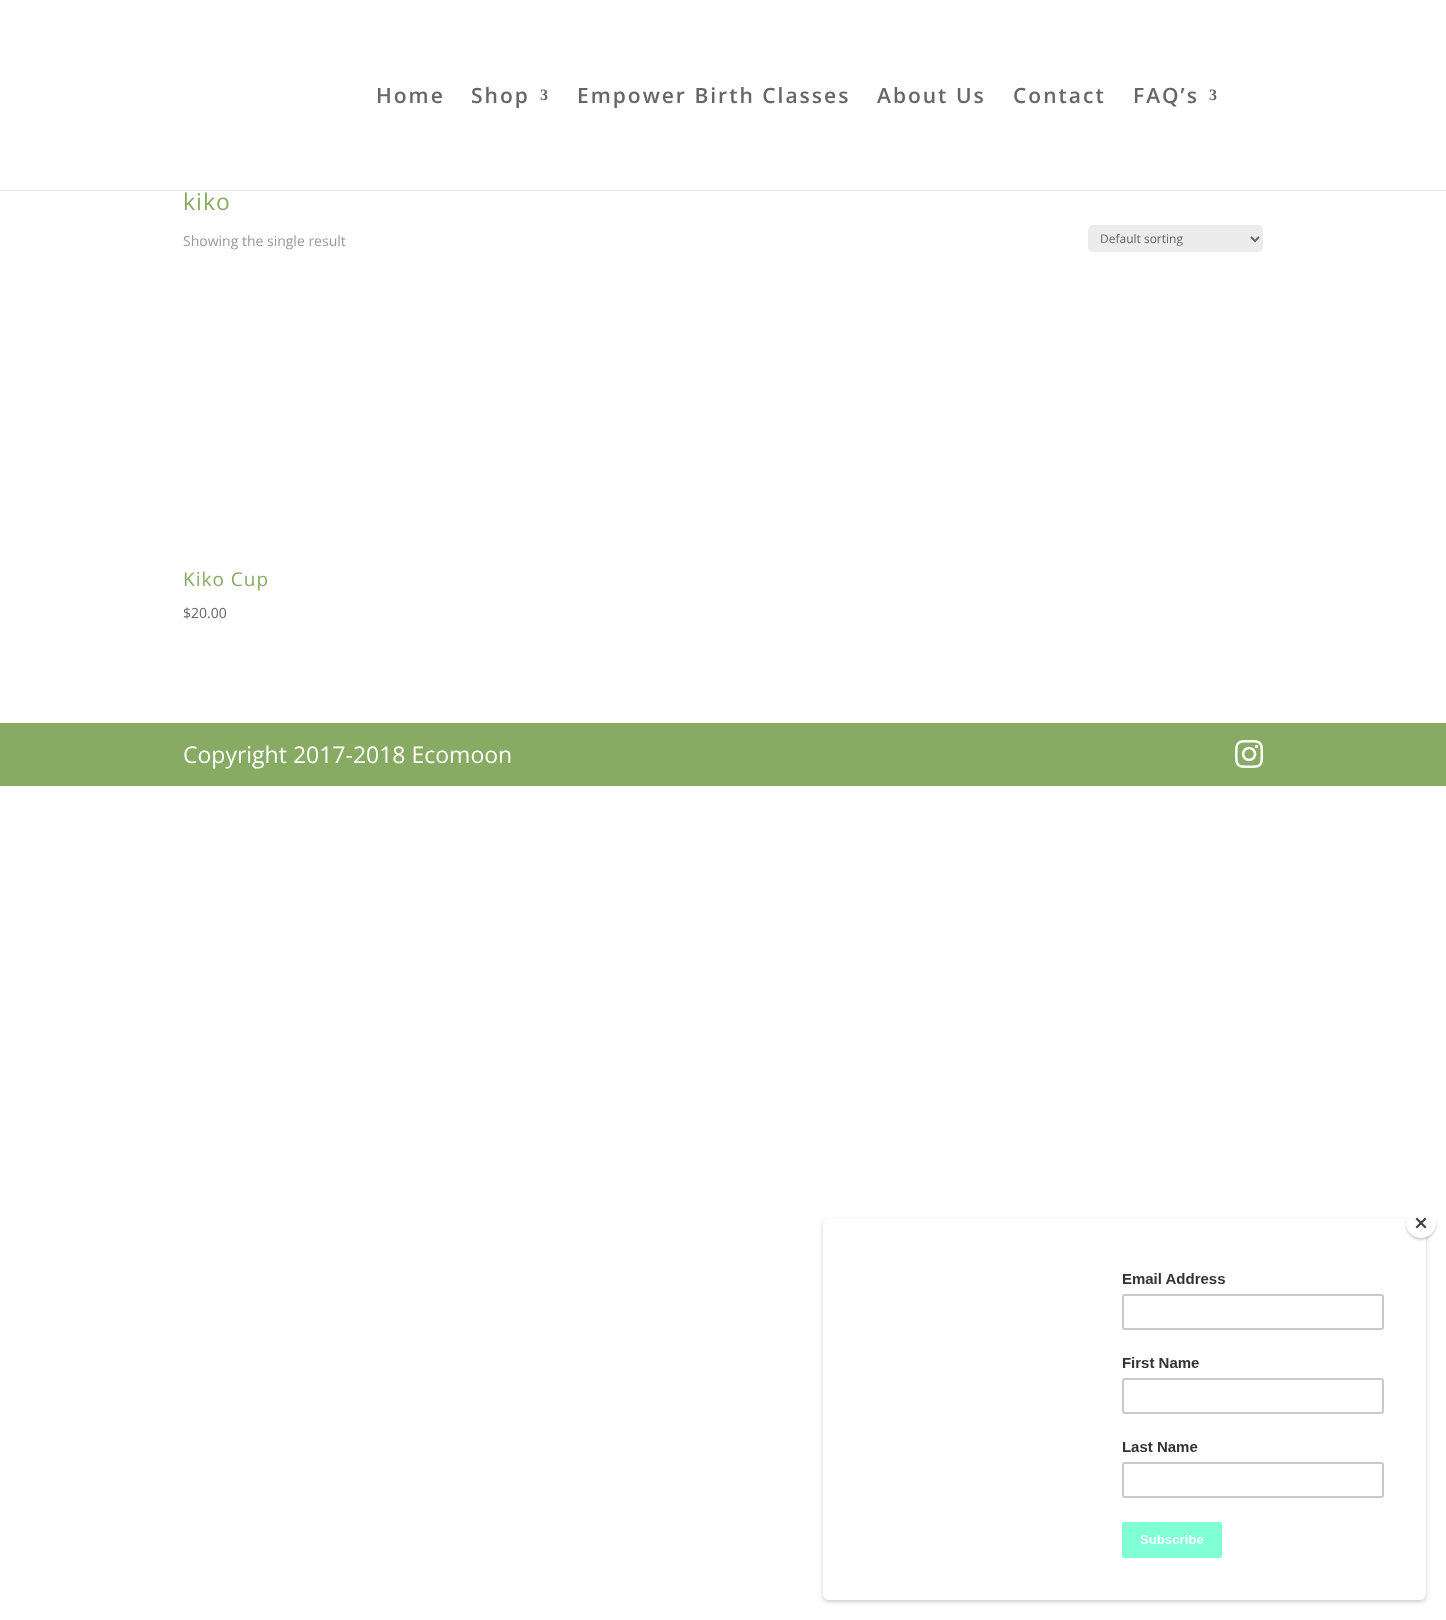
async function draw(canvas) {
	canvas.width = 1446;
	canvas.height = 1620;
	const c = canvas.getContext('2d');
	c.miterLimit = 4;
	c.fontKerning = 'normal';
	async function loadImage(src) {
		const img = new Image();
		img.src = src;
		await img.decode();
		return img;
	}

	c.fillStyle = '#fff';
	c.fillRect(0, 0, 1446, 1620);
	c.fillStyle = '#e6e6e6';
	c.fillRect(0, 190, 1446, 1);
	c.letterSpacing = '2px';
	c.font = '600 21px Open Sans';
	c.fillStyle = '#666';
	c.fillText('Home', 376, 103);
	c.fillText('Shop', 471, 103);
	c.font = 'bold 16px Liberation Serif';
	c.fillText('3', 540, 100);
	c.font = '600 21px Open Sans';
	for (const [text, x, y] of [
		['Empower Birth Classes', 577, 103],
		['About Us', 877, 103],
		['Contact', 1013, 103],
		['FAQ’s', 1133, 103],
	]) {
		c.fillText(text, x, y);
	}
	c.font = 'bold 16px Liberation Serif';
	c.fillText('3', 1209, 100);
	c.letterSpacing = '1px';
	c.font = '23px Open Sans';
	c.fillStyle = '#87ab63';
	c.fillText('kiko', 183, 210);
	c.letterSpacing = '0px';
	c.font = '14px Open Sans';
	c.fillStyle = '#999';
	c.fillText('Showing the single result', 183, 246);
	c.fillStyle = '#ececec';
	c.beginPath();
	c.roundRect(1088, 225, 175, 27, 5);
	c.fill();
	c.beginPath();
	c.moveTo(1251, 237);
	c.lineTo(1255, 241);
	c.lineTo(1259, 237);
	c.strokeStyle = '#666';
	c.lineWidth = 2;
	c.stroke();
	c.font = '12px Open Sans';
	c.fillStyle = '#666';
	c.fillText('Default sorting', 1100, 243);
	c.letterSpacing = '1px';
	c.font = '19px Open Sans';
	c.fillStyle = '#87ab63';
	c.fillText('Kiko Cup', 183, 586);
	c.letterSpacing = '0px';
	c.font = '14px Open Sans';
	c.fillStyle = '#666';
	c.fillText('$20.00', 183, 618);
	c.fillStyle = '#87ab63';
	c.fillRect(0, 723, 1446, 63);
	c.font = '23px Open Sans';
	c.fillStyle = '#fff';
	c.fillText('Copyright 2017-2018 Ecomoon', 183, 763);
	c.drawImage(await loadImage('img1.png'), 1235, 740, 29, 28);
	c.fillStyle = '#00000033';
	c.filter = 'blur(2px)';
	c.beginPath();
	c.roundRect(823, 1220, 603, 382, 6);
	c.fill();
	c.filter = 'none';
	c.fillStyle = '#fff';
	c.beginPath();
	c.roundRect(823, 1218, 603, 382, 6);
	c.fill();
	c.fillStyle = '#00000033';
	c.filter = 'blur(1px)';
	c.beginPath();
	c.roundRect(1406, 1210, 30, 30, 15);
	c.fill();
	c.filter = 'none';
	c.fillStyle = '#fff';
	c.beginPath();
	c.arc(1421, 1223, 15, 0, 2 * Math.PI);
	c.fill();
	c.fillStyle = '#414141';
	c.beginPath();
	c.moveTo(1425, 1217.5);
	c.lineTo(1426.5, 1219);
	c.lineTo(1417, 1228.5);
	c.lineTo(1415.5, 1227);
	c.closePath();
	c.fill();
	c.beginPath();
	c.moveTo(1415.5, 1219);
	c.lineTo(1417, 1217.5);
	c.lineTo(1426.5, 1227);
	c.lineTo(1425, 1228.5);
	c.closePath();
	c.fill();
	c.drawImage(await loadImage('img2.png'), 826, 1273, 597, 327);
}

draw(document.querySelector('canvas'));
